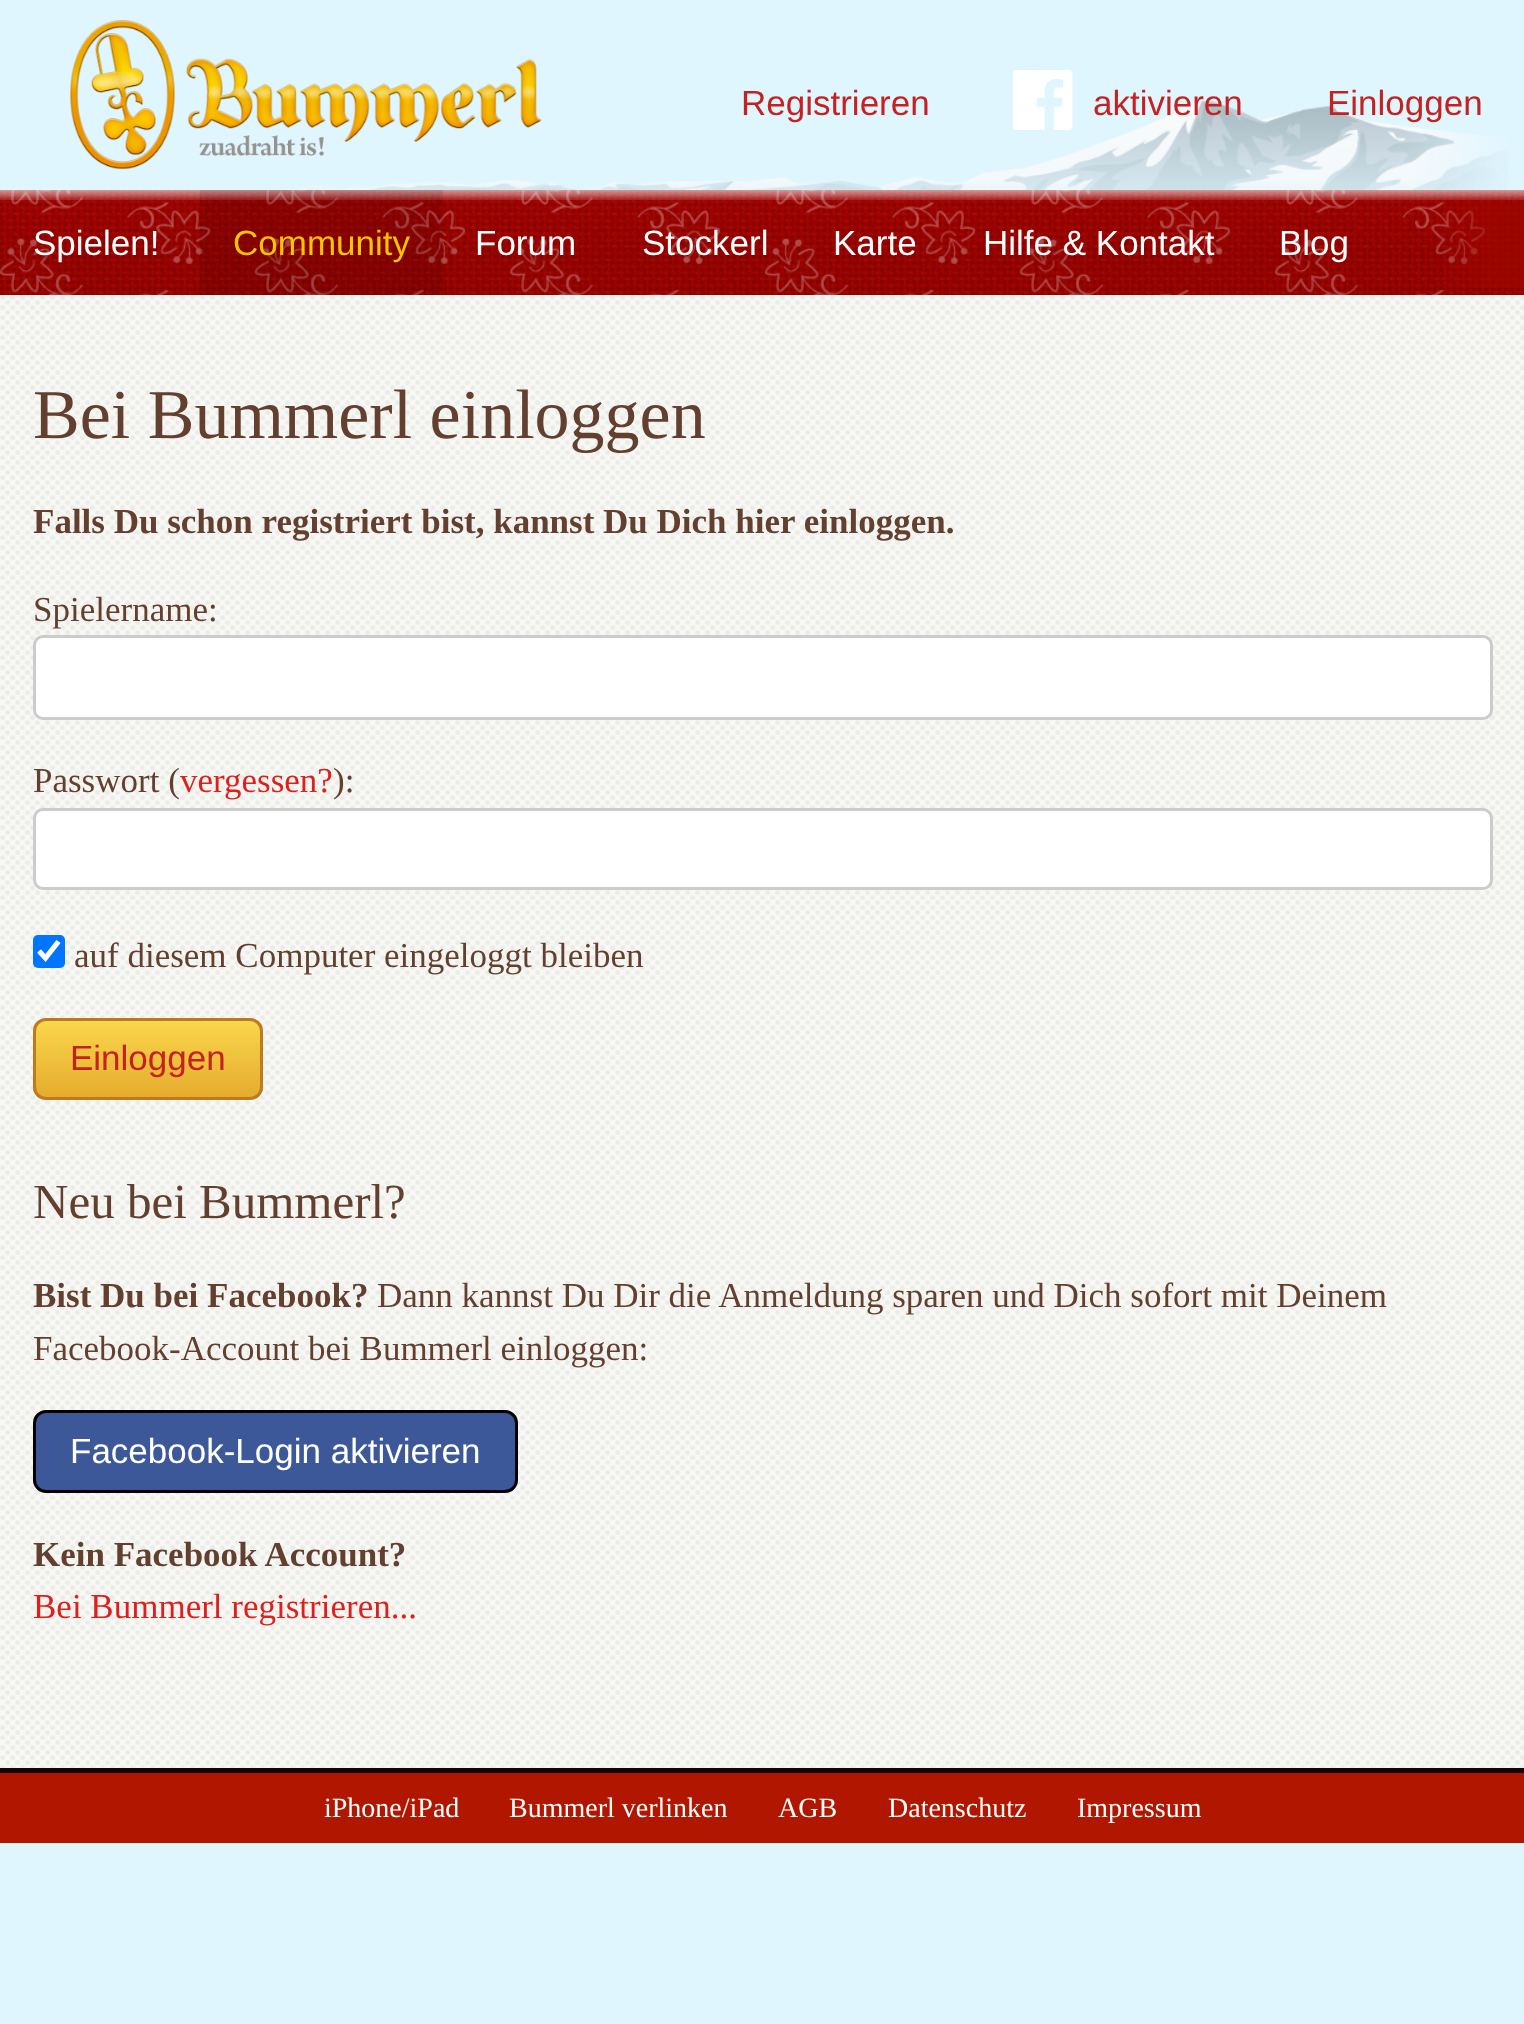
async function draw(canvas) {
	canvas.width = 1524;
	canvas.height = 2024;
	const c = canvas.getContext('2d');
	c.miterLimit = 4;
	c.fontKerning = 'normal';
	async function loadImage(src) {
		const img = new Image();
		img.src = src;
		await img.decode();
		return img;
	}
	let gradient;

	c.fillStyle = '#e0f6ff';
	c.fillRect(0, 0, 1524, 2024);
	c.drawImage(await loadImage('img1.png'), 281, 100, 1227, 90);
	c.drawImage(await loadImage('img2.png'), 70, 20, 472, 150);
	c.font = '35px Liberation Sans';
	c.fillStyle = '#c62121';
	c.fillText('Registrieren', 741, 115);
	c.drawImage(await loadImage('img3.png'), 1013, 70, 60, 60);
	c.fillText('aktivieren', 1093, 115);
	c.fillText('Einloggen', 1327, 115);
	c.drawImage(await loadImage('img4.png'), 0, 190, 1524, 105);
	c.fillStyle = '#fff';
	c.fillText('Spielen!', 33, 255);
	c.fillStyle = '#0000001a';
	c.fillRect(200, 190, 243, 105);
	c.fillStyle = '#f8c300';
	c.fillText('Community', 233, 255);
	c.fillStyle = '#fff';
	for (const [text, x, y] of [
		['Forum', 475, 255],
		['Stockerl', 642, 255],
		['Karte', 833, 255],
		['Hilfe & Kontakt', 983, 255],
		['Blog', 1279, 255],
	]) {
		c.fillText(text, x, y);
	}
	c.drawImage(await loadImage('img5.png'), 0, 295, 1524, 1473);
	c.font = '70px Liberation Serif';
	c.fillStyle = '#633f2f';
	c.fillText('Bei Bummerl einloggen', 33, 438);
	c.font = 'bold 35px Liberation Serif';
	c.fillText('Falls Du schon registriert bist, kannst Du Dich hier einloggen.', 33, 533);
	c.font = '35px Liberation Serif';
	c.fillText('Spielername:', 33, 621);
	c.fillStyle = '#fff';
	c.beginPath();
	c.roundRect(34.5, 636.5, 1457, 82, 8.5);
	c.fill();
	c.strokeStyle = '#ccc';
	c.lineWidth = 3;
	c.stroke();
	c.fillStyle = '#633f2f';
	c.fillText('Passwort (', 33, 792);
	c.fillStyle = '#de1f1c';
	c.fillText('vergessen?', 180, 792);
	c.fillStyle = '#633f2f';
	c.fillText('):', 333, 792);
	c.fillStyle = '#fff';
	c.beginPath();
	c.roundRect(34.5, 809.5, 1457, 79, 8.5);
	c.fill();
	c.stroke();
	c.fillStyle = '#0075ff';
	c.beginPath();
	c.roundRect(33, 935, 32, 33, 5);
	c.fill();
	c.beginPath();
	c.moveTo(39, 951);
	c.lineTo(45.5, 958);
	c.lineTo(58.5, 941.5);
	c.strokeStyle = '#fff';
	c.lineWidth = 5.2;
	c.stroke();
	c.fillStyle = '#633f2f';
	c.fillText('auf diesem Computer eingeloggt bleiben', 74, 967);
	c.save();
	c.beginPath();
	c.roundRect(33, 1018, 230, 82, 13);
	c.clip();
	gradient = c.createLinearGradient(148, 1020, 148, 1098);
	gradient.addColorStop(0, '#fad74b');
	gradient.addColorStop(1, '#e5ab2e');
	c.fillStyle = gradient;
	c.fillRect(33, 1020, 230, 78);
	c.restore();
	c.beginPath();
	c.roundRect(34.5, 1019.5, 227, 79, 11.5);
	c.strokeStyle = '#bf7a20';
	c.lineWidth = 3;
	c.stroke();
	c.font = '35px Liberation Sans';
	c.fillStyle = '#c62121';
	c.fillText('Einloggen', 70, 1070);
	c.font = '49px Liberation Serif';
	c.fillStyle = '#633f2f';
	c.fillText('Neu bei Bummerl?', 33, 1218);
	c.font = 'bold 35px Liberation Serif';
	c.fillText('Bist Du bei Facebook?', 33, 1307);
	c.font = '35px Liberation Serif';
	c.fillText('Dann kannst Du Dir die Anmeldung sparen und Dich sofort mit Deinem', 377, 1307);
	c.fillText('Facebook-Account bei Bummerl einloggen:', 33, 1360);
	c.fillStyle = '#3c5898';
	c.beginPath();
	c.roundRect(34.5, 1411.5, 482, 80, 11.5);
	c.fill();
	c.strokeStyle = '#000';
	c.stroke();
	c.font = '35px Liberation Sans';
	c.fillStyle = '#fff';
	c.fillText('Facebook-Login aktivieren', 70, 1463);
	c.font = 'bold 35px Liberation Serif';
	c.fillStyle = '#633f2f';
	c.fillText('Kein Facebook Account?', 33, 1566);
	c.font = '35px Liberation Serif';
	c.fillStyle = '#de1f1c';
	c.fillText('Bei Bummerl registrieren...', 33, 1618);
	c.fillStyle = '#b11600';
	c.fillRect(0, 1773, 1524, 70);
	c.fillStyle = '#180300';
	c.fillRect(0, 1768, 1524, 5);
	c.font = '28px Liberation Serif';
	c.fillStyle = '#fff';
	for (const [text, x, y] of [
		['iPhone/iPad', 324, 1817],
		['Bummerl verlinken', 509, 1817],
		['AGB', 778, 1817],
		['Datenschutz', 888, 1817],
		['Impressum', 1077, 1817],
	]) {
		c.fillText(text, x, y);
	}
}

draw(document.querySelector('canvas'));
